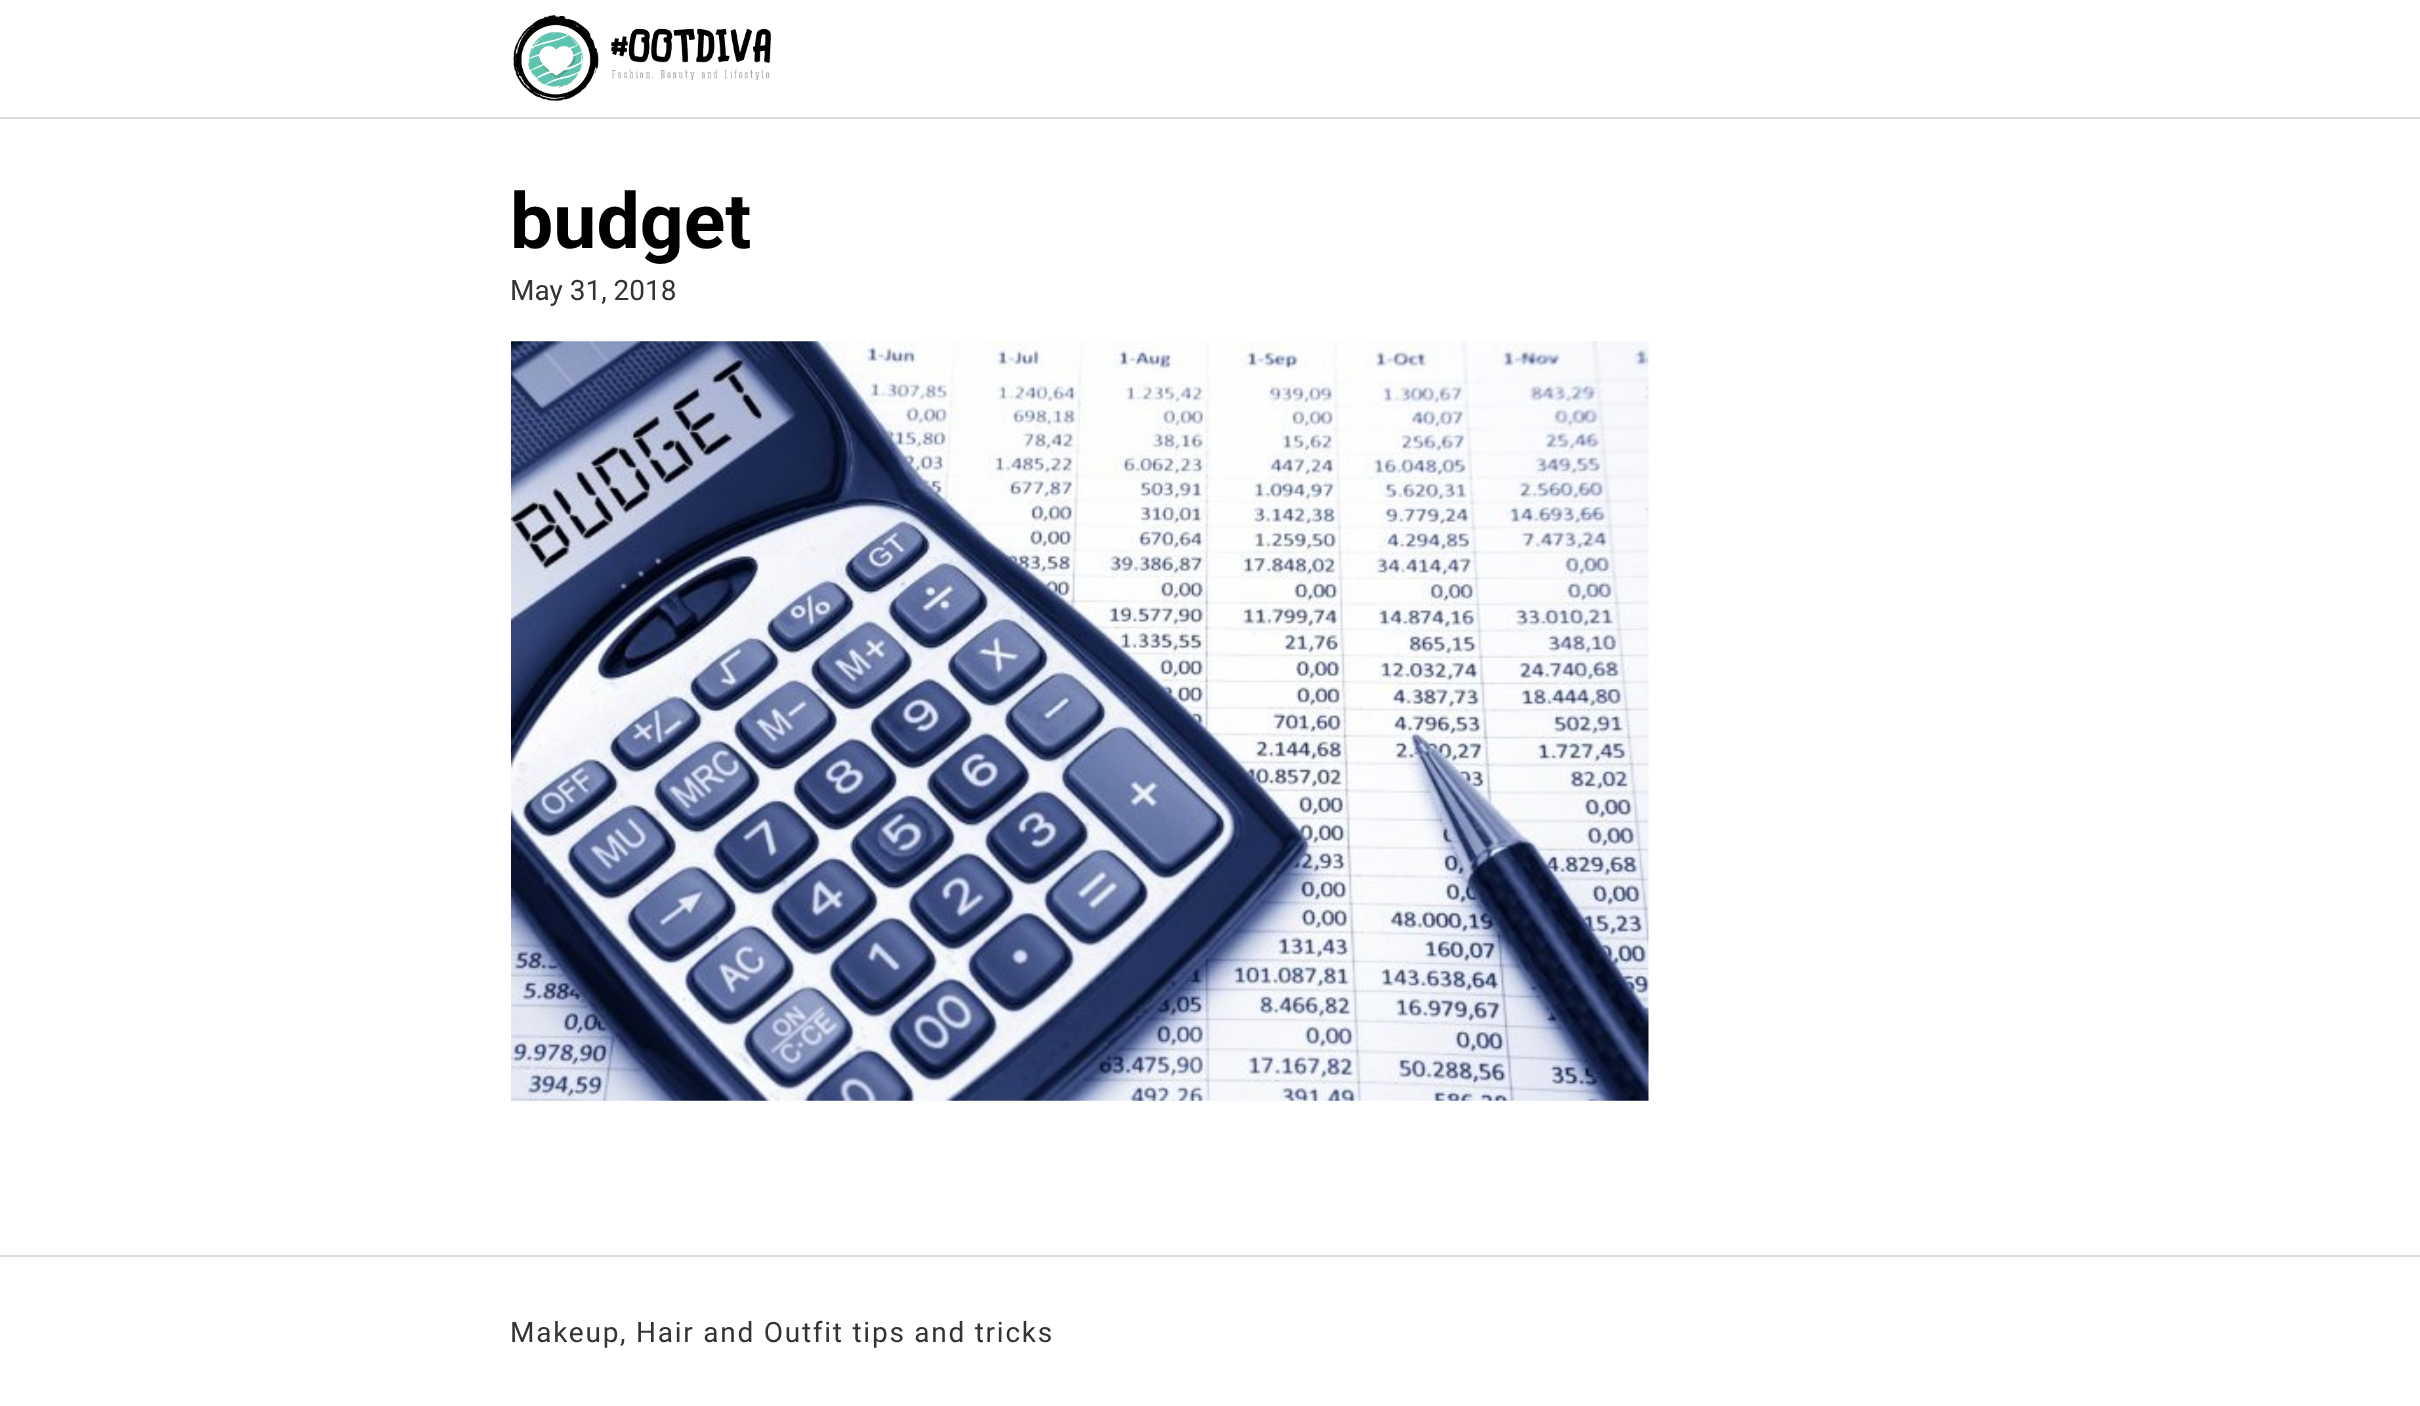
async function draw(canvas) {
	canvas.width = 2420;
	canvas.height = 1406;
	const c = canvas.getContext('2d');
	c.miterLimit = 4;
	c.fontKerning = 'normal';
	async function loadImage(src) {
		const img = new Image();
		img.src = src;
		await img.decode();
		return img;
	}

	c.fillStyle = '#fff';
	c.fillRect(0, 0, 2420, 1406);
	c.fillStyle = '#dbdbdb';
	c.fillRect(0, 117, 2420, 2);
	c.drawImage(await loadImage('img1.png'), 513, 14, 258, 87);
	c.font = 'bold 77px Roboto';
	c.fillStyle = '#000';
	c.fillText('budget', 510, 248);
	c.font = '28px Roboto';
	c.fillStyle = '#333';
	c.fillText('May 31, 2018', 510, 300);
	c.drawImage(await loadImage('img2.png'), 511, 341, 1138, 760);
	c.fillStyle = '#dbdbdb';
	c.fillRect(0, 1255, 2420, 2);
	c.letterSpacing = '1.75px';
	c.fillStyle = '#333';
	c.fillText('Makeup, Hair and Outfit tips and tricks', 510, 1342);
}

draw(document.querySelector('canvas'));
